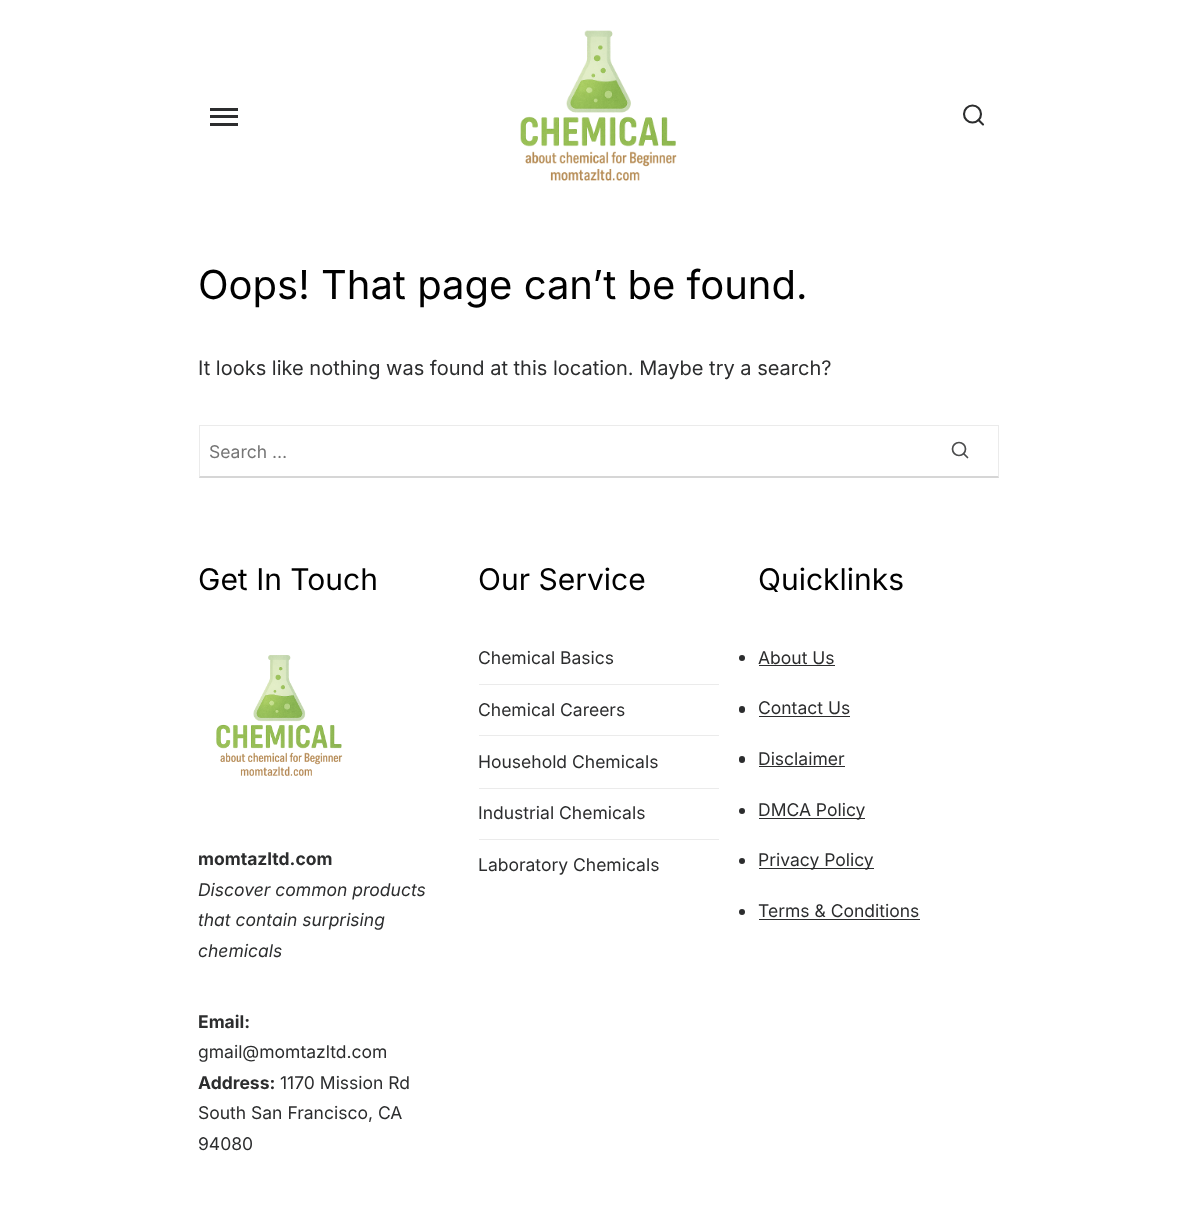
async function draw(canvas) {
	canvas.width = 1196;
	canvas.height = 1223;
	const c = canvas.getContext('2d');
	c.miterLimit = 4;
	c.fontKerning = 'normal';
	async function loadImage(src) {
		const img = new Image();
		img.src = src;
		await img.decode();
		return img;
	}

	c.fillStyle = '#fff';
	c.fillRect(0, 0, 1196, 1223);
	for (const [x, y, w, h, color] of [
		[210, 115, 28, 3, '#2c2d2e'],
		[210, 108, 28, 3, '#2c2d2e'],
		[210, 123, 28, 3, '#2c2d2e'],
	]) {
		c.fillStyle = color;
		c.fillRect(x, y, w, h);
	}
	c.drawImage(await loadImage('img1.png'), 520, 30, 157, 151);
	c.beginPath();
	c.arc(972.5, 114, 8.5, 0, 2 * Math.PI);
	c.strokeStyle = '#2c2d2e';
	c.lineWidth = 2.1;
	c.stroke();
	c.beginPath();
	c.moveTo(983, 124.5);
	c.lineTo(978.5, 120);
	c.lineCap = 'round';
	c.lineJoin = 'round';
	c.stroke();
	c.font = '40px Inter';
	c.fillStyle = '#000';
	c.fillText('Oops! That page can’t be found.', 198, 299);
	c.font = '20px Inter';
	c.fillStyle = '#2c2d2e';
	c.fillText('It looks like nothing was found at this location. Maybe try a search?', 198, 375);
	c.fillStyle = '#ebebeb';
	c.beginPath();
	c.moveTo(199, 425);
	c.lineTo(999, 425);
	c.lineTo(998, 426);
	c.lineTo(200, 426);
	c.closePath();
	c.fill();
	c.fillStyle = '#00000014';
	c.beginPath();
	c.moveTo(999, 425);
	c.lineTo(999, 478);
	c.lineTo(998, 476);
	c.lineTo(998, 426);
	c.closePath();
	c.fill();
	c.fillStyle = '#00000029';
	c.beginPath();
	c.moveTo(999, 478);
	c.lineTo(199, 478);
	c.lineTo(200, 476);
	c.lineTo(998, 476);
	c.closePath();
	c.fill();
	c.fillStyle = '#00000014';
	c.beginPath();
	c.moveTo(199, 478);
	c.lineTo(199, 425);
	c.lineTo(200, 426);
	c.lineTo(200, 476);
	c.closePath();
	c.fill();
	c.font = '17.5px Inter';
	c.fillStyle = '#757575';
	c.fillText('Search …', 209, 458);
	c.beginPath();
	c.arc(959, 449, 6.5, 0, 2 * Math.PI);
	c.strokeStyle = '#4b4c4d';
	c.lineWidth = 1.7;
	c.stroke();
	c.beginPath();
	c.moveTo(967.5, 457.5);
	c.lineTo(964, 454);
	c.stroke();
	c.font = '30px Inter';
	c.fillStyle = '#000';
	c.fillText('Get In Touch', 198, 590);
	c.drawImage(await loadImage('img2.png'), 216, 655, 127, 121);
	c.font = 'bold 17.5px Inter';
	c.fillStyle = '#2c2d2e';
	c.fillText('momtazltd.com', 198, 865);
	c.font = 'italic 17.5px Inter';
	for (const [text, x, y] of [
		['Discover common products', 198, 896],
		['that contain surprising', 198, 926],
		['chemicals', 198, 957],
	]) {
		c.fillText(text, x, y);
	}
	c.font = 'bold 17.5px Inter';
	c.fillText('Email:', 198, 1028);
	c.font = '17.5px Inter';
	c.fillText('gmail@momtazltd.com', 198, 1058);
	c.font = 'bold 17.5px Inter';
	c.fillText('Address:', 198, 1089);
	c.font = '17.5px Inter';
	for (const [text, x, y] of [
		['1170 Mission Rd', 280, 1089],
		['South San Francisco, CA', 198, 1119],
		['94080', 198, 1150],
	]) {
		c.fillText(text, x, y);
	}
	c.font = '30px Inter';
	c.fillStyle = '#000';
	c.fillText('Our Service', 478, 590);
	c.fillStyle = '#ebebeb';
	c.fillRect(479, 684, 240, 1);
	c.font = '17.5px Inter';
	c.fillStyle = '#2c2d2e';
	c.fillText('Chemical Basics', 478, 664);
	c.fillStyle = '#ebebeb';
	c.fillRect(479, 735, 240, 1);
	c.fillStyle = '#2c2d2e';
	c.fillText('Chemical Careers', 478, 716);
	c.fillStyle = '#ebebeb';
	c.fillRect(479, 788, 240, 1);
	c.fillStyle = '#2c2d2e';
	c.fillText('Household Chemicals', 478, 768);
	c.fillStyle = '#ebebeb';
	c.fillRect(479, 839, 240, 1);
	c.fillStyle = '#2c2d2e';
	c.fillText('Industrial Chemicals', 478, 819);
	c.fillText('Laboratory Chemicals', 478, 871);
	c.font = '30px Inter';
	c.fillStyle = '#000';
	c.fillText('Quicklinks', 758, 590);
	c.fillStyle = '#2c2d2e';
	c.beginPath();
	c.arc(742, 658, 3, 0, 2 * Math.PI);
	c.fill();
	c.font = '17.5px Inter';
	c.fillText('About Us', 758, 664);
	c.fillRect(759, 665, 76, 1);
	c.beginPath();
	c.roundRect(739, 706, 6, 7, 3);
	c.fill();
	c.fillText('Contact Us', 758, 714);
	c.fillRect(759, 716, 91, 1);
	c.beginPath();
	c.roundRect(739, 756, 6, 7, 3);
	c.fill();
	c.fillText('Disclaimer', 758, 765);
	c.fillRect(759, 766, 86, 1);
	c.beginPath();
	c.arc(742, 811, 3, 0, 2 * Math.PI);
	c.fill();
	c.fillRect(759, 818, 106, 1);
	c.fillText('DMCA Policy', 758, 816);
	c.beginPath();
	c.arc(742, 861, 3, 0, 2 * Math.PI);
	c.fill();
	c.fillRect(759, 868, 115, 1);
	c.fillText('Privacy Policy', 758, 866);
	c.beginPath();
	c.arc(742, 912, 3, 0, 2 * Math.PI);
	c.fill();
	c.fillText('Terms & Conditions', 758, 917);
	c.fillRect(759, 919, 161, 1);
}

draw(document.querySelector('canvas'));
